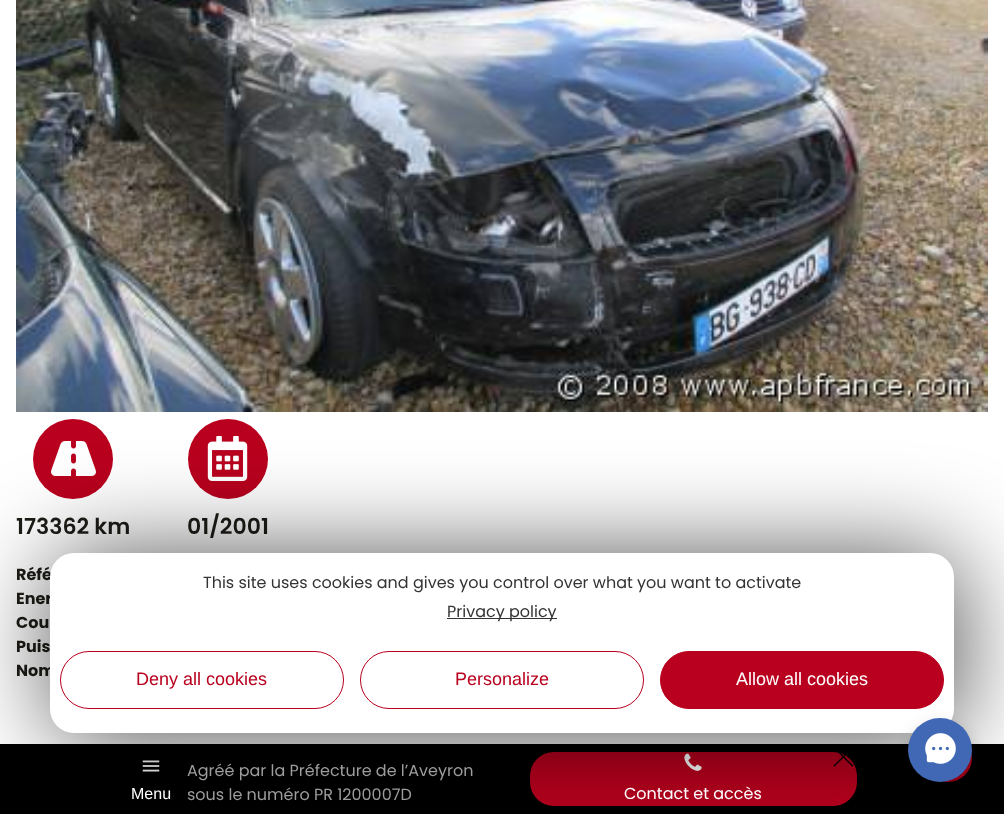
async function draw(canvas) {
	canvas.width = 1004;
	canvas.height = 814;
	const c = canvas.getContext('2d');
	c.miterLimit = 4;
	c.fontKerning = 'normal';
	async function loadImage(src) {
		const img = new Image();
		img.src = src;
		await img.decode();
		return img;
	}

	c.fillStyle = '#fff';
	c.fillRect(0, 0, 1004, 814);
	c.drawImage(await loadImage('img1.png'), 16, 0, 972, 412);
	c.fillStyle = '#b9001e';
	c.beginPath();
	c.arc(73, 459, 40, 0, 2 * Math.PI);
	c.fill();
	c.drawImage(await loadImage('img2.png'), 51, 441, 45, 35);
	c.font = '600 22px Poppins';
	c.fillStyle = '#1d1c17';
	c.fillText('173362 km', 16, 534);
	c.fillStyle = '#b9001e';
	c.beginPath();
	c.arc(228, 459, 40, 0, 2 * Math.PI);
	c.fill();
	c.drawImage(await loadImage('img3.png'), 207, 436, 41, 45);
	c.fillStyle = '#1d1c17';
	c.fillText('01/2001', 187, 534);
	c.font = 'bold 16px Poppins';
	for (const [text, x, y] of [
		['Réfé', 16, 580],
		['Ener', 16, 604],
		['Cou', 16, 628],
		['Puis', 16, 652],
		['Nom', 16, 676],
	]) {
		c.fillText(text, x, y);
	}
	c.fillStyle = '#000';
	c.fillRect(0, 744, 1004, 70);
	c.drawImage(await loadImage('img5.png'), 142, 760, 18, 12);
	c.fillStyle = '#b9001e';
	c.beginPath();
	c.roundRect(530, 752, 327, 54, 24);
	c.fill();
	c.drawImage(await loadImage('img6.png'), 833, 752, 21, 15);
	c.drawImage(await loadImage('img7.png'), 684, 753, 18, 18);
	c.beginPath();
	c.arc(948, 758, 24, 0, 2 * Math.PI);
	c.fill();
	c.fillStyle = '#000000b3';
	c.filter = 'blur(50px)';
	c.beginPath();
	c.roundRect(54, 557, 904, 180, 24);
	c.fill();
	c.filter = 'none';
	c.fillStyle = '#fff';
	c.beginPath();
	c.roundRect(50, 553, 904, 180, 24);
	c.fill();
	c.font = '16px Poppins';
	c.fillStyle = '#333';
	c.fillText('This site uses cookies and gives you control over what you want to activate', 203, 588);
	c.fillRect(447, 618, 110, 1);
	c.fillText('Privacy policy', 447, 617);
	c.beginPath();
	c.roundRect(60.5, 651.5, 283, 57, 28.5);
	c.strokeStyle = '#b9001e';
	c.stroke();
	c.font = '18px Liberation Sans';
	c.fillStyle = '#b9001e';
	c.fillText('Deny all cookies', 136, 685);
	c.beginPath();
	c.roundRect(360.5, 651.5, 283, 57, 28.5);
	c.stroke();
	c.fillText('Personalize', 455, 685);
	c.beginPath();
	c.roundRect(660.5, 651.5, 283, 57, 28.5);
	c.fill();
	c.stroke();
	c.fillStyle = '#fff';
	c.fillText('Allow all cookies', 736, 685);
	c.fillStyle = '#0000003d';
	c.filter = 'blur(8px)';
	c.beginPath();
	c.roundRect(908, 726, 64, 64, 32);
	c.fill();
	c.filter = 'none';
	c.fillStyle = '#4168b5';
	c.beginPath();
	c.arc(940, 750, 32, 0, 2 * Math.PI);
	c.fill();
	c.drawImage(await loadImage('img4.png'), 925, 733, 31, 31);
	c.font = '16px Liberation Sans';
	c.fillStyle = '#fff';
	c.fillText('Menu', 131, 799);
	c.font = '16px Poppins';
	c.fillStyle = '#9d9d9d';
	c.fillText('Agréé par la Préfecture de l’Aveyron', 187, 776);
	c.fillText('sous le numéro PR 1200007D', 187, 800);
	c.fillStyle = '#fff';
	c.fillText('Contact et accès', 624, 799);
}

draw(document.querySelector('canvas'));
